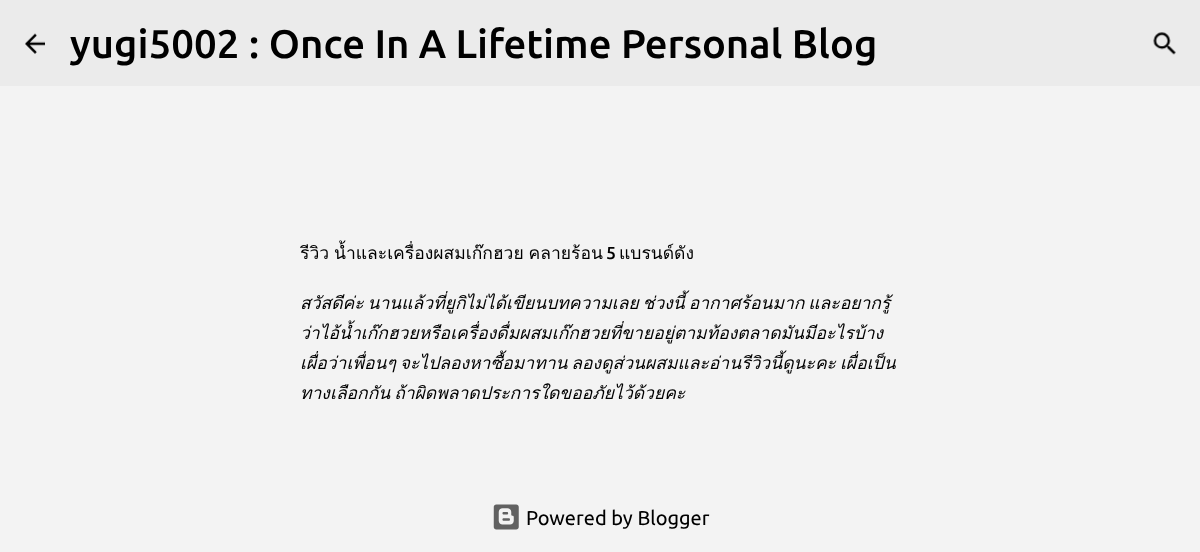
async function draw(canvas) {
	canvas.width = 1200;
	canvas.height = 552;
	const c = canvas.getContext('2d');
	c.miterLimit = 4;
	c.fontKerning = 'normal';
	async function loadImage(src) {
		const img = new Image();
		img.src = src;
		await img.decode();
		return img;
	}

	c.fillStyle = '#f3f3f3';
	c.fillRect(0, 0, 1200, 552);
	c.fillStyle = '#ebebeb';
	c.fillRect(0, 0, 1200, 86);
	c.drawImage(await loadImage('img1.png'), 25, 33, 20, 21);
	c.font = '500 40px Ubuntu';
	c.fillStyle = '#000';
	c.fillText('yugi5002 : Once In A Lifetime Personal Blog', 70, 58);
	c.drawImage(await loadImage('img2.png'), 1153, 32, 23, 23);
	c.save();
	c.beginPath();
	c.rect(300, 0, 600, 464);
	c.clip();
	c.wordSpacing = '-1px';
	c.font = '17.5px Loma';
	c.fillText('รีวิว น้ำและเครื่องผสมเก๊กฮวย คลายร้อน', 300, 259);
	c.restore();
	c.font = '500 17.5px Ubuntu';
	c.fillText('5', 606, 259);
	c.font = '17.5px Loma';
	c.fillText('แบรนด์ดัง', 619, 259);
	c.wordSpacing = '-2px';
	c.font = 'italic 17.5px Loma';
	c.fillText('สวัสดีค่ะ นานแล้วที่ยูกิไม่ได้เขียนบทความเลย ช่วงนี้ อากาศร้อนมาก และอยากรู้', 300, 309);
	c.wordSpacing = '0px';
	c.fillText('ว่าไอ้น้ำเก๊กฮวยหรือเครื่องดื่มผสมเก๊กฮวยที่ขายอยู่ตามท้องตลาดมันมีอะไรบ้าง', 300, 339);
	c.wordSpacing = '-2px';
	c.fillText('เผื่อว่าเพื่อนๆ จะไปลองหาซื้อมาทาน ลองดูส่วนผสมและอ่านรีวิวนี้ดูนะคะ เผื่อเป็น', 300, 369);
	c.fillText('ทางเลือกกัน ถ้าผิดพลาดประการใดขออภัยไว้ด้วยคะ', 300, 399);
	c.drawImage(await loadImage('img3.png'), 493, 504, 26, 26);
	c.wordSpacing = '0px';
	c.font = '20px Ubuntu';
	c.fillText('Powered by Blogger', 526, 525);
}

draw(document.querySelector('canvas'));
